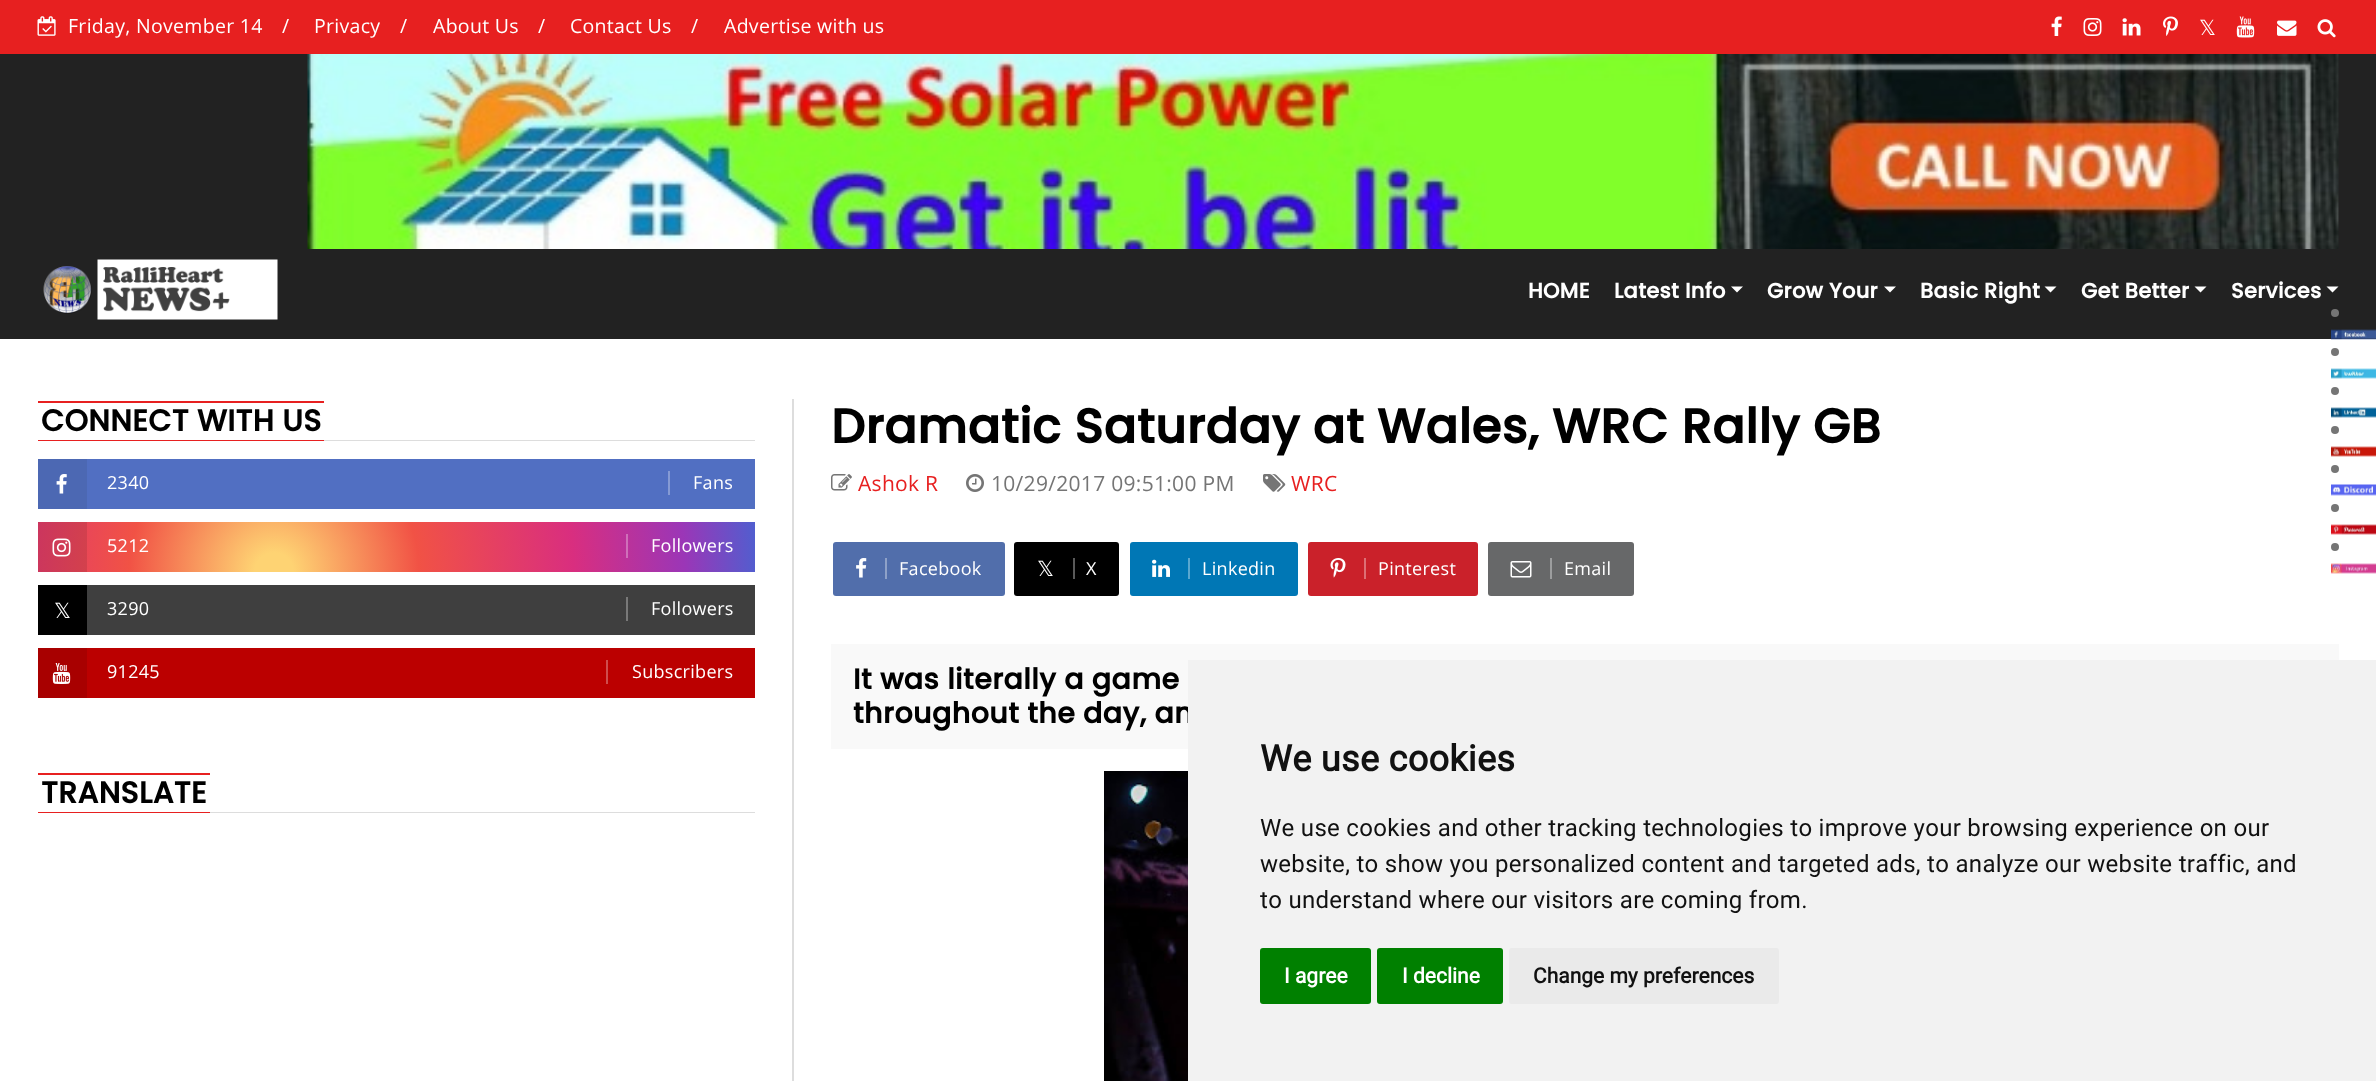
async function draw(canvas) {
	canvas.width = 2376;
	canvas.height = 1081;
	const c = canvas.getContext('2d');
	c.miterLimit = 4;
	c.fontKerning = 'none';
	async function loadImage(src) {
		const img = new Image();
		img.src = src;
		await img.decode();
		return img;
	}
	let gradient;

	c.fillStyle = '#fff';
	c.fillRect(0, 0, 2376, 1081);
	c.fillStyle = '#222';
	c.fillRect(0, 54, 2376, 285);
	c.fillStyle = '#e72020';
	c.fillRect(0, 0, 2376, 54);
	c.drawImage(await loadImage('img1.png'), 37, 16, 19, 20);
	c.letterSpacing = '0.3px';
	c.font = '19.5px Open Sans';
	c.fillStyle = '#fff';
	for (const [text, x, y] of [
		['Friday, November 14', 68, 33],
		['/', 282, 33],
		['Privacy', 314, 33],
		['/', 400, 33],
		['About Us', 433, 33],
		['/', 538, 33],
		['Contact Us', 570, 33],
		['/', 691, 33],
		['Advertise with us', 724, 33],
	]) {
		c.fillText(text, x, y);
	}
	c.drawImage(await loadImage('img2.png'), 2051, 16, 11, 20);
	c.drawImage(await loadImage('img3.png'), 2083, 18, 19, 18);
	c.drawImage(await loadImage('img4.png'), 2122, 18, 19, 18);
	c.drawImage(await loadImage('img5.png'), 2163, 16, 15, 20);
	c.font = '21px DejaVu Sans';
	c.fillText('𝕏', 2199, 35);
	c.drawImage(await loadImage('img6.png'), 2236, 16, 19, 22);
	c.drawImage(await loadImage('img7.png'), 2277, 20, 20, 16);
	c.drawImage(await loadImage('img8.png'), 2317, 19, 19, 19);
	c.drawImage(await loadImage('img9.png'), 307, 54, 2032, 195);
	c.drawImage(await loadImage('img10.png'), 43, 259, 235, 61);
	c.font = 'bold 21px Poppins';
	c.fillText('HOME', 1528, 298);
	c.fillText('Latest Info', 1614, 298);
	c.beginPath();
	c.moveTo(1731, 286.5);
	c.lineTo(1743, 286.5);
	c.lineTo(1737, 292.5);
	c.closePath();
	c.fill();
	c.fillText('Grow Your', 1767, 298);
	c.beginPath();
	c.moveTo(1884, 286.5);
	c.lineTo(1896, 286.5);
	c.lineTo(1890, 292.5);
	c.closePath();
	c.fill();
	c.fillText('Basic Right', 1920, 298);
	c.beginPath();
	c.moveTo(2044.5, 286.5);
	c.lineTo(2056.5, 286.5);
	c.lineTo(2050.5, 292.5);
	c.closePath();
	c.fill();
	c.fillText('Get Better', 2081, 298);
	c.beginPath();
	c.moveTo(2194.5, 286.5);
	c.lineTo(2206.5, 286.5);
	c.lineTo(2200.5, 292.5);
	c.closePath();
	c.fill();
	c.fillText('Services', 2231, 298);
	c.beginPath();
	c.moveTo(2326.5, 286.5);
	c.lineTo(2338.5, 286.5);
	c.lineTo(2332.5, 292.5);
	c.closePath();
	c.fill();
	c.fillStyle = '#e72020';
	c.fillRect(38, 401, 286, 2);
	c.fillRect(38, 440, 286, 1);
	c.font = 'bold 30px Poppins';
	c.fillStyle = '#000';
	c.fillText('CONNECT WITH US', 41, 431);
	for (const [x, y, w, h, color] of [
		[324, 440, 431, 1, '#ddd'],
		[87, 459, 668, 50, '#516fc2'],
		[38, 459, 49, 50, '#4c68b3'],
	]) {
		c.fillStyle = color;
		c.fillRect(x, y, w, h);
	}
	c.drawImage(await loadImage('img11.png'), 56, 474, 11, 20);
	c.font = '18px Open Sans';
	c.fillStyle = '#fff';
	c.fillText('2340', 107, 489);
	c.fillStyle = '#859ad4';
	c.fillRect(668, 471, 2, 24);
	c.fillStyle = '#fff';
	c.fillText('Fans', 693, 489);
	gradient = c.createRadialGradient(274, 572, 0, 274, 572, 483);
	gradient.addColorStop(0.04, '#fed373');
	gradient.addColorStop(0.3, '#f15245');
	gradient.addColorStop(0.62, '#d92e7f');
	gradient.addColorStop(0.85, '#9b36b7');
	gradient.addColorStop(1, '#515ecf');
	c.fillStyle = gradient;
	c.fillRect(87, 522, 668, 50);
	gradient = c.createRadialGradient(274, 572, 0, 274, 572, 483);
	gradient.addColorStop(0.04, '#e5be68');
	gradient.addColorStop(0.3, '#d94a3e');
	gradient.addColorStop(0.62, '#c32972');
	gradient.addColorStop(0.85, '#8c31a5');
	gradient.addColorStop(1, '#4955ba');
	c.fillStyle = gradient;
	c.fillRect(38, 522, 49, 50);
	c.drawImage(await loadImage('img12.png'), 52, 538, 19, 19);
	c.fillStyle = '#fff';
	c.fillText('5212', 107, 552);
	c.fillStyle = '#cf70b9';
	c.fillRect(626, 534, 2, 24);
	c.fillStyle = '#fff';
	c.fillText('Followers', 651, 552);
	c.fillStyle = '#3f3f3f';
	c.fillRect(87, 585, 668, 50);
	c.fillStyle = '#000';
	c.fillRect(38, 585, 49, 50);
	c.font = '21px DejaVu Sans';
	c.fillStyle = '#fff';
	c.fillText('𝕏', 54, 618);
	c.font = '18px Open Sans';
	c.fillText('3290', 107, 615);
	c.fillStyle = '#797979';
	c.fillRect(626, 597, 2, 24);
	c.fillStyle = '#fff';
	c.fillText('Followers', 651, 615);
	c.fillStyle = '#b00';
	c.fillRect(87, 648, 668, 50);
	c.fillStyle = '#a80000';
	c.fillRect(38, 648, 49, 50);
	c.drawImage(await loadImage('img13.png'), 52, 663, 19, 21);
	c.fillStyle = '#fff';
	c.fillText('91245', 107, 678);
	c.fillStyle = '#cf4d4d';
	c.fillRect(606, 660, 2, 24);
	c.fillStyle = '#fff';
	c.fillText('Subscribers', 632, 678);
	c.fillStyle = '#757575';
	c.beginPath();
	c.arc(2335, 313, 4, 0, 2 * Math.PI);
	c.fill();
	c.drawImage(await loadImage('img14.png'), 2331, 329, 45, 11);
	c.beginPath();
	c.arc(2335, 352, 4, 0, 2 * Math.PI);
	c.fill();
	c.drawImage(await loadImage('img15.png'), 2331, 368, 45, 11);
	c.beginPath();
	c.arc(2335, 391, 4, 0, 2 * Math.PI);
	c.fill();
	c.drawImage(await loadImage('img16.png'), 2331, 407, 45, 11);
	c.beginPath();
	c.arc(2335, 430, 4, 0, 2 * Math.PI);
	c.fill();
	c.drawImage(await loadImage('img17.png'), 2331, 446, 45, 11);
	c.beginPath();
	c.arc(2335, 469, 4, 0, 2 * Math.PI);
	c.fill();
	c.drawImage(await loadImage('img18.png'), 2331, 484, 45, 12);
	c.beginPath();
	c.arc(2335, 508, 4, 0, 2 * Math.PI);
	c.fill();
	c.drawImage(await loadImage('img19.png'), 2331, 524, 45, 11);
	c.beginPath();
	c.arc(2335, 547, 4, 0, 2 * Math.PI);
	c.fill();
	c.drawImage(await loadImage('img20.png'), 2331, 563, 45, 11);
	c.fillStyle = '#e72020';
	c.fillRect(38, 773, 172, 2);
	c.fillRect(38, 812, 172, 1);
	c.font = 'bold 30px Poppins';
	c.fillStyle = '#000';
	c.fillText('TRANSLATE', 41, 803);
	c.fillStyle = '#ddd';
	c.fillRect(210, 812, 545, 1);
	c.fillRect(792, 399, 2, 682);
	c.letterSpacing = '0.45px';
	c.font = 'bold 48px Poppins';
	c.fillStyle = '#000';
	c.fillText('Dramatic Saturday at Wales, WRC Rally GB', 831, 443);
	c.drawImage(await loadImage('img21.png'), 831, 474, 21, 17);
	c.letterSpacing = '0.3px';
	c.font = '21px Open Sans';
	c.fillStyle = '#e72020';
	c.fillText('Ashok R', 858, 491);
	c.drawImage(await loadImage('img22.png'), 966, 474, 18, 18);
	c.fillStyle = '#757575';
	c.fillText('10/29/2017 09:51:00 PM', 991, 491);
	c.drawImage(await loadImage('img23.png'), 1263, 474, 23, 18);
	c.fillStyle = '#e72020';
	c.fillText('WRC', 1291, 491);
	c.fillStyle = '#516eab';
	c.beginPath();
	c.roundRect(833, 542, 172, 54, 3);
	c.fill();
	c.fillStyle = '#8ea1c8';
	c.fillRect(885, 558, 2, 21);
	c.drawImage(await loadImage('img24.png'), 856, 558, 11, 20);
	c.font = '18px Open Sans';
	c.fillStyle = '#fff';
	c.fillText('Facebook', 899, 575);
	c.fillStyle = '#000';
	c.beginPath();
	c.roundRect(1014, 542, 105, 54, 3);
	c.fill();
	c.fillStyle = '#595959';
	c.fillRect(1073, 558, 2, 21);
	c.font = '21px DejaVu Sans';
	c.fillStyle = '#fff';
	c.fillText('𝕏', 1037, 576);
	c.font = '18px Open Sans';
	c.fillText('X', 1086, 575);
	c.fillStyle = '#0077b5';
	c.beginPath();
	c.roundRect(1130, 542, 168, 54, 3);
	c.fill();
	c.fillStyle = '#59a7cf';
	c.fillRect(1188, 558, 2, 21);
	c.drawImage(await loadImage('img25.png'), 1152, 559, 18, 18);
	c.fillStyle = '#fff';
	c.fillText('Linkedin', 1202, 575);
	c.fillStyle = '#ca212a';
	c.beginPath();
	c.roundRect(1308, 542, 170, 54, 3);
	c.fill();
	c.fillStyle = '#dd6f75';
	c.fillRect(1364, 558, 2, 21);
	c.drawImage(await loadImage('img26.png'), 1330, 558, 16, 20);
	c.fillStyle = '#fff';
	c.fillText('Pinterest', 1378, 575);
	c.fillStyle = '#676869';
	c.beginPath();
	c.roundRect(1488, 542, 146, 54, 3);
	c.fill();
	c.fillStyle = '#9c9d9e';
	c.fillRect(1550, 558, 2, 21);
	c.drawImage(await loadImage('img27.png'), 1510, 561, 22, 17);
	c.fillStyle = '#fff';
	c.fillText('Email', 1564, 575);
	c.fillStyle = '#f9f9f9';
	c.fillRect(831, 644, 1508, 105);
	c.letterSpacing = '0.45px';
	c.font = 'bold 28.5px Poppins';
	c.fillStyle = '#000';
	c.fillText('It was literally a game', 853, 689);
	c.fillText('throughout the day, an', 853, 723);
	c.drawImage(await loadImage('img28.png'), 1104, 771, 84, 310);
	c.fillStyle = '#f2f2f2';
	c.fillRect(1188, 660, 1188, 421);
	c.letterSpacing = '0.3px';
	c.font = 'bold 36px Roboto';
	c.fillStyle = '#111';
	c.fillText('We use cookies', 1260, 771);
	c.font = '24px Roboto';
	for (const [text, x, y] of [
		['We use cookies and other tracking technologies to improve your browsing experience on our', 1260, 836],
		['website, to show you personalized content and targeted ads, to analyze our website traffic, and', 1260, 872],
		['to understand where our visitors are coming from.', 1260, 908],
	]) {
		c.fillText(text, x, y);
	}
	c.fillStyle = '#008000';
	c.beginPath();
	c.roundRect(1260, 948, 111, 56, 3);
	c.fill();
	c.letterSpacing = '0px';
	c.font = 'bold 21px Roboto';
	c.fillStyle = '#fff';
	c.fillText('I agree', 1284, 983);
	c.fillStyle = '#008000';
	c.beginPath();
	c.roundRect(1377, 948, 126, 56, 3);
	c.fill();
	c.fillStyle = '#fff';
	c.fillText('I decline', 1402, 983);
	c.fillStyle = '#eaeaea';
	c.beginPath();
	c.roundRect(1509, 948, 270, 56, 3);
	c.fill();
	c.fillStyle = '#111';
	c.fillText('Change my preferences', 1533, 983);
}

draw(document.querySelector('canvas'));
